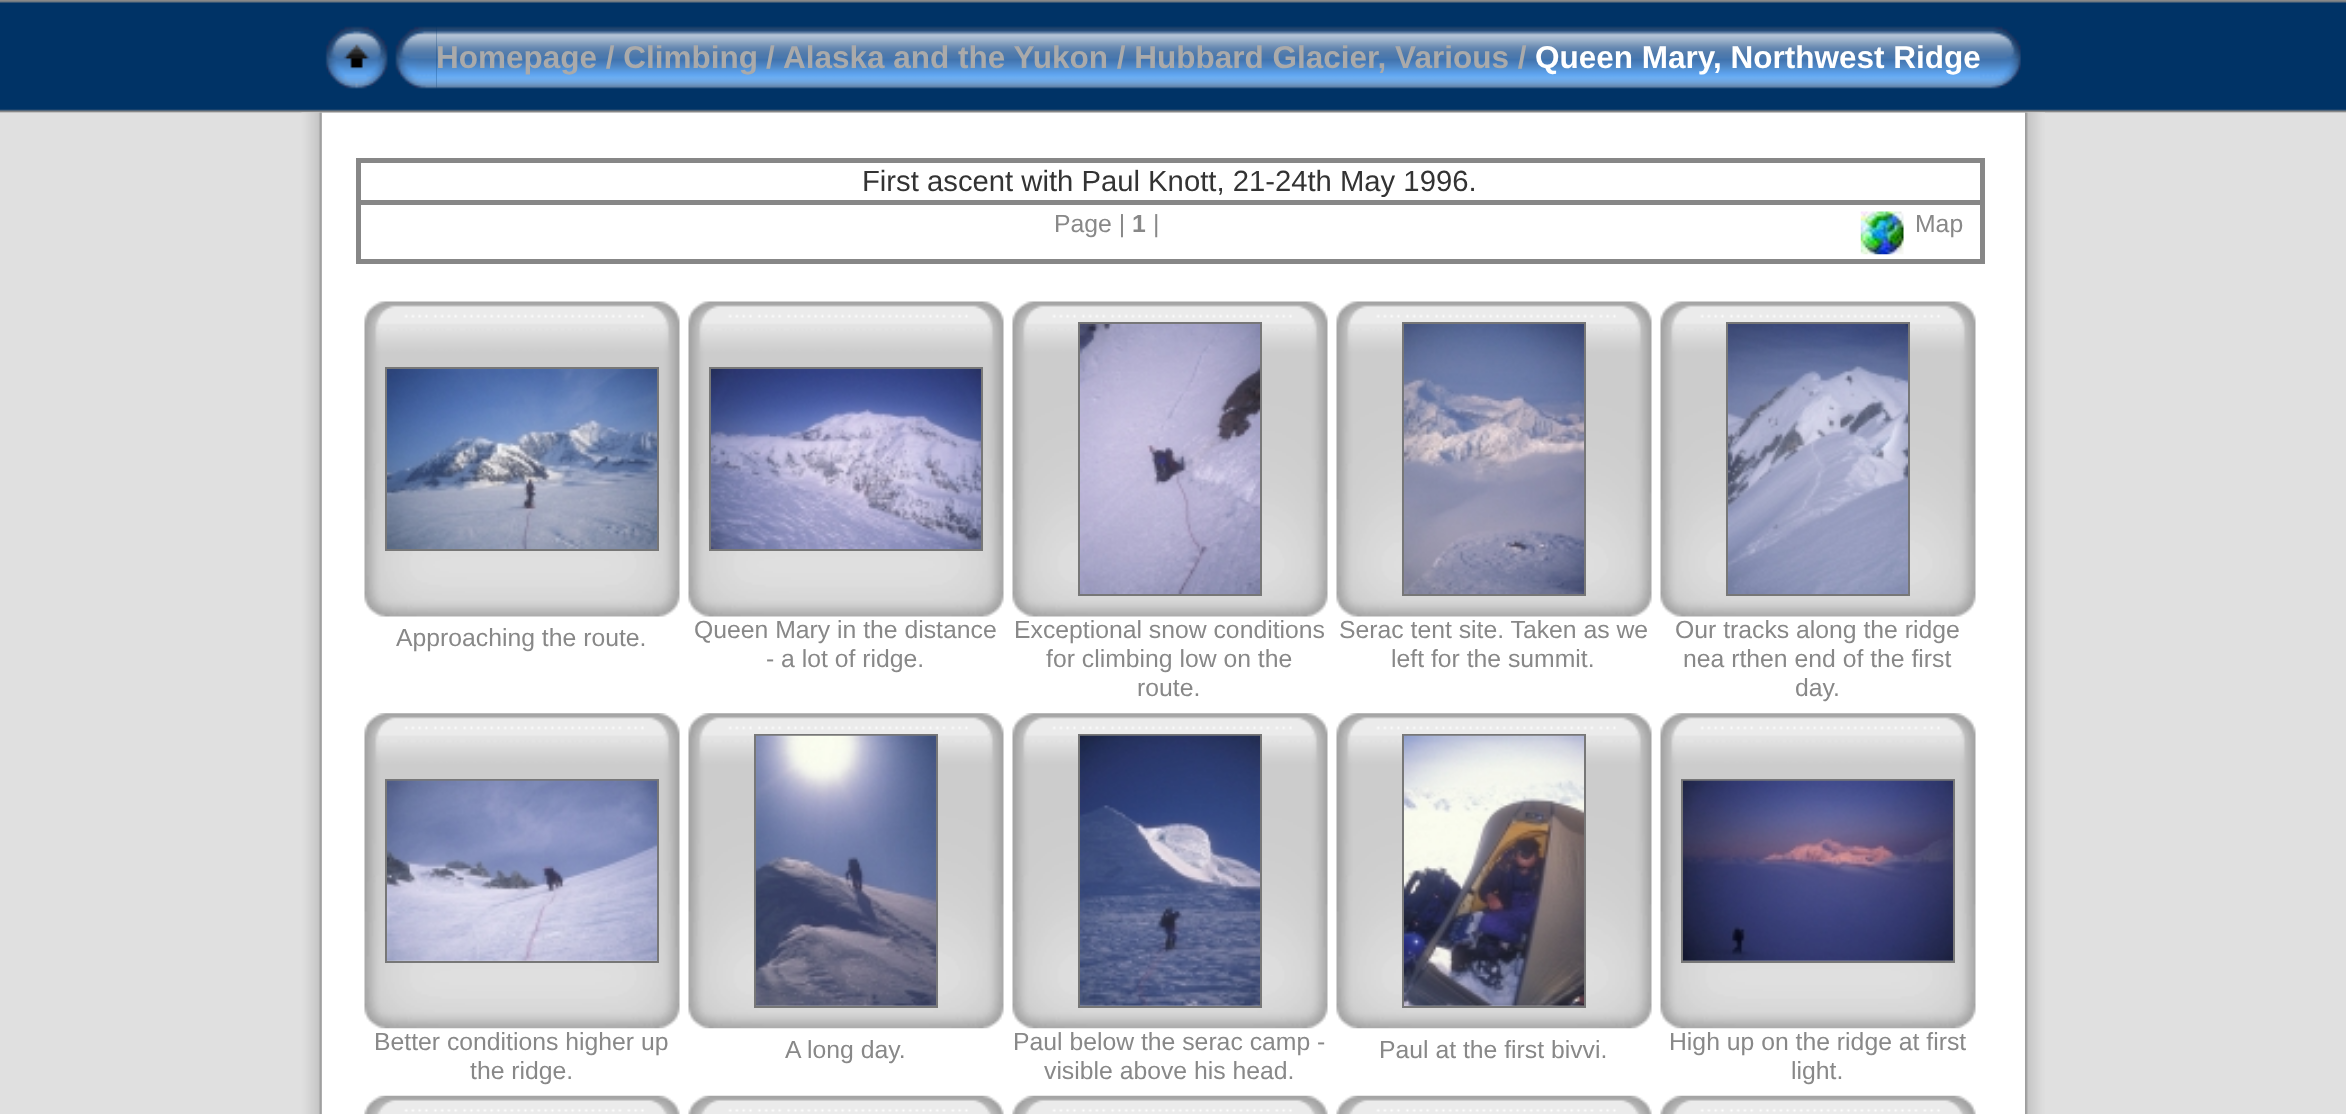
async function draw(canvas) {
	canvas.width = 2346;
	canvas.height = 1114;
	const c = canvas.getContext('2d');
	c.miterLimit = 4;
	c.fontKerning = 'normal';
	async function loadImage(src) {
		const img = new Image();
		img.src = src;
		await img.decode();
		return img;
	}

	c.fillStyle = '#fff';
	c.fillRect(0, 0, 2346, 1114);
	c.drawImage(await loadImage('img1.png'), 0, 0, 2346, 113);
	c.drawImage(await loadImage('img2.png'), 325, 26, 63, 63);
	c.drawImage(await loadImage('img4.png'), 436, 26, 1544, 63);
	c.drawImage(await loadImage('img3.png'), 395, 26, 42, 63);
	c.font = 'bold 31.5px Liberation Sans';
	c.fillStyle = '#aaa';
	for (const [text, x, y] of [
		['Homepage / Climbing', 436, 68],
		['/', 766, 68],
		['Alaska and the Yukon / Hubbard Glacier, Various /', 783, 68],
	]) {
		c.fillText(text, x, y);
	}
	c.fillStyle = '#fff';
	c.fillText('Queen Mary, Northwest Ridge', 1535, 68);
	c.drawImage(await loadImage('img5.png'), 1980, 26, 41, 63);
	c.fillStyle = '#e0e0e0';
	c.fillRect(0, 113, 322, 1001);
	c.drawImage(await loadImage('img6.png'), 301, 112, 21, 1002);
	for (const [x, y, w, h, color] of [
		[356, 158, 1629, 5, '#878787'],
		[1980, 158, 5, 105, '#878787'],
		[356, 259, 1629, 5, '#878787'],
		[356, 158, 5, 105, '#878787'],
	]) {
		c.fillStyle = color;
		c.fillRect(x, y, w, h);
	}
	c.font = '29.25px Liberation Sans';
	c.fillStyle = '#333';
	c.fillText('First ascent with Paul Knott, 21-24th May 1996.', 862, 191);
	c.fillStyle = '#878787';
	c.fillRect(356, 200, 1629, 5);
	c.font = '24.75px Liberation Sans';
	c.fillStyle = '#888';
	c.fillText('Page |', 1054, 232);
	c.font = 'bold 24.75px Liberation Sans';
	c.fillText('1', 1132, 232);
	c.font = '24.75px Liberation Sans';
	c.fillText('|', 1153, 232);
	c.drawImage(await loadImage('img7.png'), 1860, 211, 44, 44);
	c.fillText('Map', 1915, 232);
	c.drawImage(await loadImage('img8.png'), 364, 301, 316, 316);
	c.strokeStyle = '#777';
	c.lineWidth = 2;
	c.strokeRect(386, 368, 272, 182);
	c.drawImage(await loadImage('img9.png'), 387, 369, 270, 180);
	c.fillText('Approaching the route.', 396, 646);
	c.drawImage(await loadImage('img10.png'), 688, 301, 316, 316);
	c.strokeRect(710, 368, 272, 182);
	c.drawImage(await loadImage('img11.png'), 711, 369, 270, 180);
	c.fillText('Queen Mary in the distance', 694, 638);
	c.fillText('- a lot of ridge.', 766, 667);
	c.drawImage(await loadImage('img12.png'), 1012, 301, 316, 316);
	c.strokeRect(1079, 323, 182, 272);
	c.drawImage(await loadImage('img13.png'), 1080, 324, 180, 270);
	for (const [text, x, y] of [
		['Exceptional snow conditions', 1014, 638],
		['for climbing low on the', 1046, 667],
		['route.', 1137, 696],
	]) {
		c.fillText(text, x, y);
	}
	c.drawImage(await loadImage('img14.png'), 1336, 301, 316, 316);
	c.strokeRect(1403, 323, 182, 272);
	c.drawImage(await loadImage('img15.png'), 1404, 324, 180, 270);
	c.fillText('Serac tent site. Taken as we', 1339, 638);
	c.fillText('left for the summit.', 1391, 667);
	c.drawImage(await loadImage('img16.png'), 1660, 301, 316, 316);
	c.strokeRect(1727, 323, 182, 272);
	c.drawImage(await loadImage('img17.png'), 1728, 324, 180, 270);
	for (const [text, x, y] of [
		['Our tracks along the ridge', 1675, 638],
		['nea rthen end of the first', 1683, 667],
		['day.', 1795, 696],
	]) {
		c.fillText(text, x, y);
	}
	c.drawImage(await loadImage('img18.png'), 364, 713, 316, 316);
	c.strokeRect(386, 780, 272, 182);
	c.drawImage(await loadImage('img19.png'), 387, 780, 270, 181);
	c.fillText('Better conditions higher up', 374, 1050);
	c.fillText('the ridge.', 470, 1079);
	c.drawImage(await loadImage('img20.png'), 688, 713, 316, 316);
	c.strokeRect(755, 735, 182, 272);
	c.drawImage(await loadImage('img21.png'), 756, 735, 180, 271);
	c.fillText('A long day.', 785, 1058);
	c.drawImage(await loadImage('img22.png'), 1012, 713, 316, 316);
	c.strokeRect(1079, 735, 182, 272);
	c.drawImage(await loadImage('img23.png'), 1080, 735, 180, 271);
	c.fillText('Paul below the serac camp -', 1013, 1050);
	c.fillText('visible above his head.', 1044, 1079);
	c.drawImage(await loadImage('img24.png'), 1336, 713, 316, 316);
	c.strokeRect(1403, 735, 182, 272);
	c.drawImage(await loadImage('img25.png'), 1404, 735, 180, 271);
	c.fillText('Paul at the first bivvi.', 1379, 1058);
	c.drawImage(await loadImage('img26.png'), 1660, 713, 316, 316);
	c.strokeRect(1682, 780, 272, 182);
	c.drawImage(await loadImage('img27.png'), 1683, 780, 270, 181);
	c.fillText('High up on the ridge at first', 1669, 1050);
	c.fillText('light.', 1791, 1079);
	c.drawImage(await loadImage('img28.png'), 364, 1095, 316, 19);
	c.drawImage(await loadImage('img29.png'), 688, 1095, 316, 19);
	c.drawImage(await loadImage('img30.png'), 1012, 1095, 316, 19);
	c.drawImage(await loadImage('img31.png'), 1336, 1095, 316, 19);
	c.drawImage(await loadImage('img32.png'), 1660, 1095, 316, 19);
	c.fillStyle = '#e0e0e0';
	c.fillRect(2045, 113, 301, 1001);
	c.drawImage(await loadImage('img33.png'), 2025, 112, 20, 1002);
}

draw(document.querySelector('canvas'));
